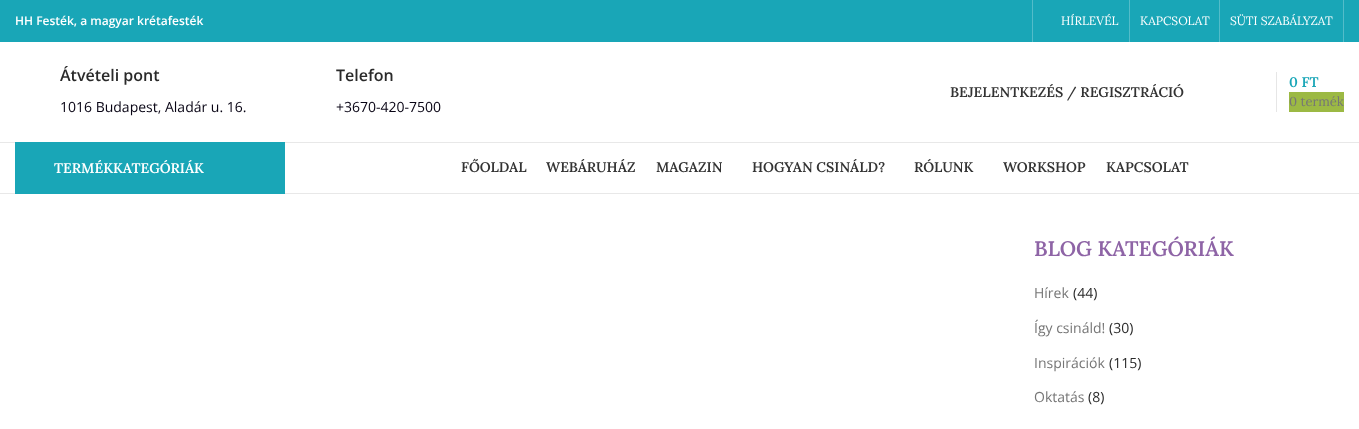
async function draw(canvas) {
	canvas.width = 1359;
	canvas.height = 429;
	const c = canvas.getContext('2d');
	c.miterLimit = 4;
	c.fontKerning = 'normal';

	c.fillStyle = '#fff';
	c.fillRect(0, 0, 1359, 429);
	c.fillStyle = '#19a6b7';
	c.fillRect(0, 0, 1359, 42);
	c.font = '600 12px Open Sans';
	c.fillStyle = '#fff';
	c.fillText('HH Festék, a magyar krétafesték', 15, 25);
	c.fillStyle = '#53bcc9';
	c.fillRect(1032, 0, 1, 42);
	c.font = '12px Lora';
	c.fillStyle = '#fff';
	c.fillText('HÍRLEVÉL', 1061, 25);
	c.fillStyle = '#53bcc9';
	c.fillRect(1129, 0, 1, 42);
	c.fillStyle = '#fff';
	c.fillText('KAPCSOLAT', 1140, 25);
	c.fillStyle = '#53bcc9';
	c.fillRect(1219, 0, 1, 42);
	c.fillStyle = '#fff';
	c.fillText('SÜTI SZABÁLYZAT', 1230, 25);
	c.fillStyle = '#53bcc9';
	c.fillRect(1343, 0, 1, 42);
	c.fillStyle = '#e8e8e8';
	c.fillRect(0, 142, 1359, 1);
	c.font = '600 16px Open Sans';
	c.fillStyle = '#2a2a2a';
	c.fillText('Átvételi pont', 60, 81);
	c.font = '14px Open Sans';
	c.fillStyle = '#080414';
	c.fillText('1016 Budapest, Aladár u. 16.', 60, 112);
	c.font = '600 16px Open Sans';
	c.fillStyle = '#2a2a2a';
	c.fillText('Telefon', 336, 81);
	c.font = '14px Open Sans';
	c.fillStyle = '#080414';
	c.fillText('+3670-420-7500', 336, 112);
	c.font = '600 14px Lora';
	c.fillStyle = '#333';
	c.fillText('BEJELENTKEZÉS / REGISZTRÁCIÓ', 950, 97);
	c.fillStyle = '#e6e6e6';
	c.fillRect(1276, 72, 1, 40);
	c.fillStyle = '#19a6b7';
	c.fillText('0 FT', 1289, 87);
	c.fillStyle = '#9cb944';
	c.fillRect(1289, 92, 55, 20);
	c.font = '13px Lora';
	c.fillStyle = '#767676';
	c.fillText('0 termék', 1289, 106);
	c.fillStyle = '#e8e8e8';
	c.fillRect(0, 193, 1359, 1);
	c.fillStyle = '#19a6b7';
	c.fillRect(15, 142, 270, 52);
	c.font = '600 14px Lora';
	c.fillStyle = '#fff';
	c.fillText('TERMÉKKATEGÓRIÁK', 54, 173);
	c.fillStyle = '#333';
	for (const [text, x, y] of [
		['FŐOLDAL', 461, 172],
		['WEBÁRUHÁZ', 546, 172],
		['MAGAZIN', 656, 172],
		['HOGYAN CSINÁLD?', 752, 172],
		['RÓLUNK', 914, 172],
		['WORKSHOP', 1003, 172],
		['KAPCSOLAT', 1106, 172],
	]) {
		c.fillText(text, x, y);
	}
	c.font = '600 21px Lora';
	c.fillStyle = '#8e64a6';
	c.fillText('BLOG KATEGÓRIÁK', 1034, 256);
	c.font = '14px Open Sans';
	c.fillStyle = '#767676';
	c.fillText('Hírek', 1034, 298);
	c.fillStyle = '#2a2a2a';
	c.fillText('(44)', 1073, 298);
	c.fillStyle = '#767676';
	c.fillText('Így csináld!', 1034, 333);
	c.fillStyle = '#2a2a2a';
	c.fillText('(30)', 1109, 333);
	c.fillStyle = '#767676';
	c.fillText('Inspirációk', 1034, 368);
	c.fillStyle = '#2a2a2a';
	c.fillText('(115)', 1109, 368);
	c.fillStyle = '#767676';
	c.fillText('Oktatás', 1034, 402);
	c.fillStyle = '#2a2a2a';
	c.fillText('(8)', 1088, 402);
}

draw(document.querySelector('canvas'));
